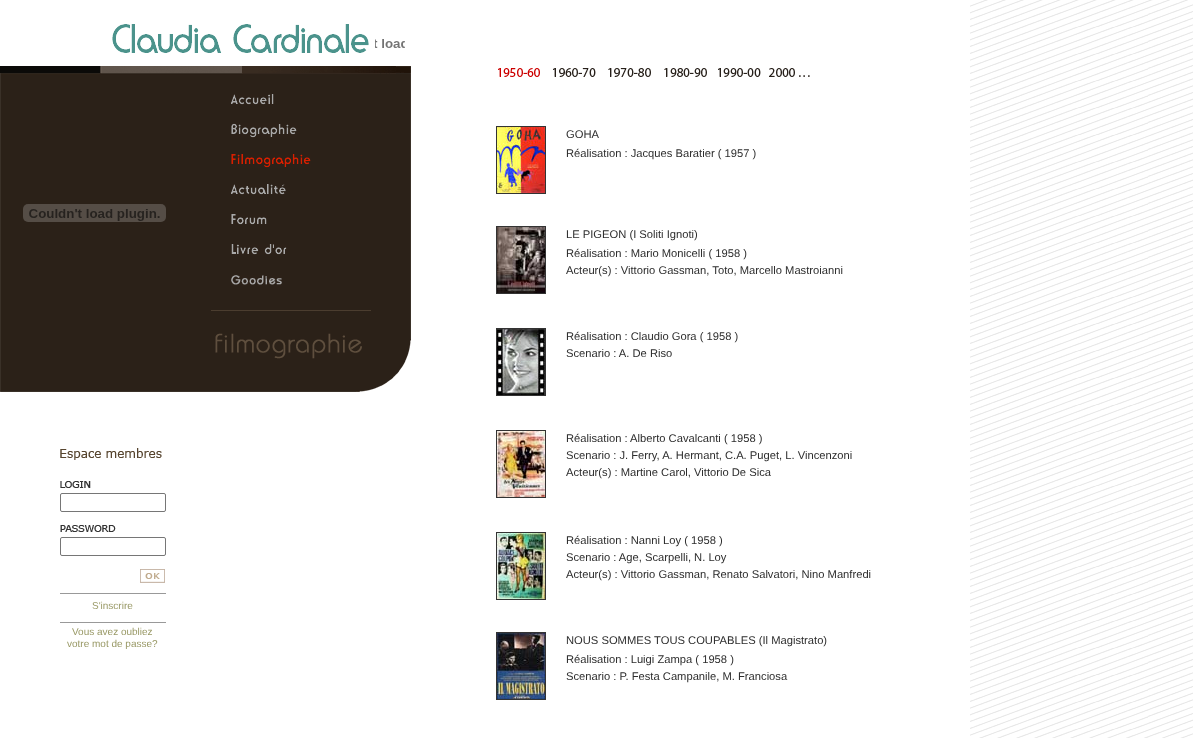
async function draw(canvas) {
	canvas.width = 1193;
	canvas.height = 738;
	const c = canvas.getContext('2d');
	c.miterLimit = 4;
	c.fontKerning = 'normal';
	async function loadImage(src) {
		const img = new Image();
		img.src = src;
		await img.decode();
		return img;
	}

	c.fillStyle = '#fff';
	c.fillRect(0, 0, 1193, 738);
	c.drawImage(await loadImage('img1.png'), 0, 0, 1193, 738);
	c.drawImage(await loadImage('img2.png'), 112, 24, 257, 29);
	c.drawImage(await loadImage('img3.png'), 375, 39, 30, 9);
	c.drawImage(await loadImage('img4.png'), 0, 66, 411, 326);
	c.drawImage(await loadImage('img5.png'), 0, 66, 396, 7);
	c.drawImage(await loadImage('img6.png'), 231, 94, 43, 11);
	c.drawImage(await loadImage('img7.png'), 231, 123, 66, 15);
	c.drawImage(await loadImage('img8.png'), 231, 154, 80, 14);
	c.drawImage(await loadImage('img9.png'), 231, 184, 55, 11);
	c.drawImage(await loadImage('img10.png'), 231, 214, 36, 11);
	c.drawImage(await loadImage('img11.png'), 231, 244, 56, 11);
	c.drawImage(await loadImage('img12.png'), 231, 275, 51, 10);
	c.drawImage(await loadImage('img13.png'), 23, 204, 143, 18);
	c.drawImage(await loadImage('img14.png'), 215, 333, 147, 26);
	c.fillStyle = '#4b3d2f';
	c.fillRect(211, 310, 160, 1);
	c.drawImage(await loadImage('img15.png'), 60, 448, 102, 12);
	c.drawImage(await loadImage('img16.png'), 60, 481, 31, 7);
	c.beginPath();
	c.roundRect(60.5, 493.5, 105, 18, 1.5);
	c.strokeStyle = '#767676';
	c.stroke();
	c.drawImage(await loadImage('img17.png'), 60, 525, 56, 7);
	c.beginPath();
	c.roundRect(60.5, 537.5, 105, 18, 1.5);
	c.stroke();
	c.drawImage(await loadImage('img18.png'), 140, 569, 25, 14);
	c.fillStyle = '#999';
	c.fillRect(60, 593, 106, 1);
	c.font = '10px Liberation Sans';
	c.fillStyle = '#996';
	c.fillText('S\'inscrire', 92, 609);
	c.fillStyle = '#999';
	c.fillRect(60, 622, 106, 1);
	c.fillStyle = '#996';
	c.fillText('Vous avez oubliez', 72, 635);
	c.fillText('votre mot de passe?', 67, 647);
	c.drawImage(await loadImage('img19.png'), 498, 68, 42, 9);
	c.drawImage(await loadImage('img20.png'), 553, 68, 43, 9);
	c.drawImage(await loadImage('img21.png'), 608, 68, 43, 9);
	c.drawImage(await loadImage('img22.png'), 664, 68, 43, 9);
	c.drawImage(await loadImage('img23.png'), 718, 68, 43, 9);
	c.drawImage(await loadImage('img24.png'), 769, 68, 41, 9);
	c.strokeStyle = '#333';
	c.strokeRect(496.5, 126.5, 49, 67);
	c.drawImage(await loadImage('img25.png'), 497, 127, 48, 66);
	c.font = '11.2px Liberation Sans';
	c.fillStyle = '#2d2d2d';
	c.fillText('GOHA', 566, 138);
	c.fillText('Réalisation : Jacques Baratier ( 1957 )', 566, 157);
	c.strokeRect(496.5, 226.5, 49, 67);
	c.drawImage(await loadImage('img26.png'), 497, 227, 48, 66);
	for (const [text, x, y] of [
		['LE PIGEON (I Soliti Ignoti)', 566, 238],
		['Réalisation : Mario Monicelli ( 1958 )', 566, 257],
		['Acteur(s) : Vittorio Gassman, Toto, Marcello Mastroianni', 566, 274],
	]) {
		c.fillText(text, x, y);
	}
	c.strokeRect(496.5, 328.5, 49, 67);
	c.drawImage(await loadImage('img27.png'), 497, 329, 48, 66);
	c.fillText('Réalisation : Claudio Gora ( 1958 )', 566, 340);
	c.fillText('Scenario : A. De Riso', 566, 357);
	c.strokeRect(496.5, 430.5, 49, 67);
	c.drawImage(await loadImage('img28.png'), 497, 431, 48, 66);
	for (const [text, x, y] of [
		['Réalisation : Alberto Cavalcanti ( 1958 )', 566, 442],
		['Scenario : J. Ferry, A. Hermant, C.A. Puget, L. Vincenzoni', 566, 459],
		['Acteur(s) : Martine Carol, Vittorio De Sica', 566, 476],
	]) {
		c.fillText(text, x, y);
	}
	c.strokeRect(496.5, 532.5, 49, 67);
	c.drawImage(await loadImage('img29.png'), 497, 533, 48, 66);
	for (const [text, x, y] of [
		['Réalisation : Nanni Loy ( 1958 )', 566, 544],
		['Scenario : Age, Scarpelli, N. Loy', 566, 561],
		['Acteur(s) : Vittorio Gassman, Renato Salvatori, Nino Manfredi', 566, 578],
	]) {
		c.fillText(text, x, y);
	}
	c.strokeRect(496.5, 632.5, 49, 67);
	c.drawImage(await loadImage('img30.png'), 497, 633, 48, 66);
	for (const [text, x, y] of [
		['NOUS SOMMES TOUS COUPABLES (Il Magistrato)', 566, 644],
		['Réalisation : Luigi Zampa ( 1958 )', 566, 663],
		['Scenario : P. Festa Campanile, M. Franciosa', 566, 680],
	]) {
		c.fillText(text, x, y);
	}
}

draw(document.querySelector('canvas'));
